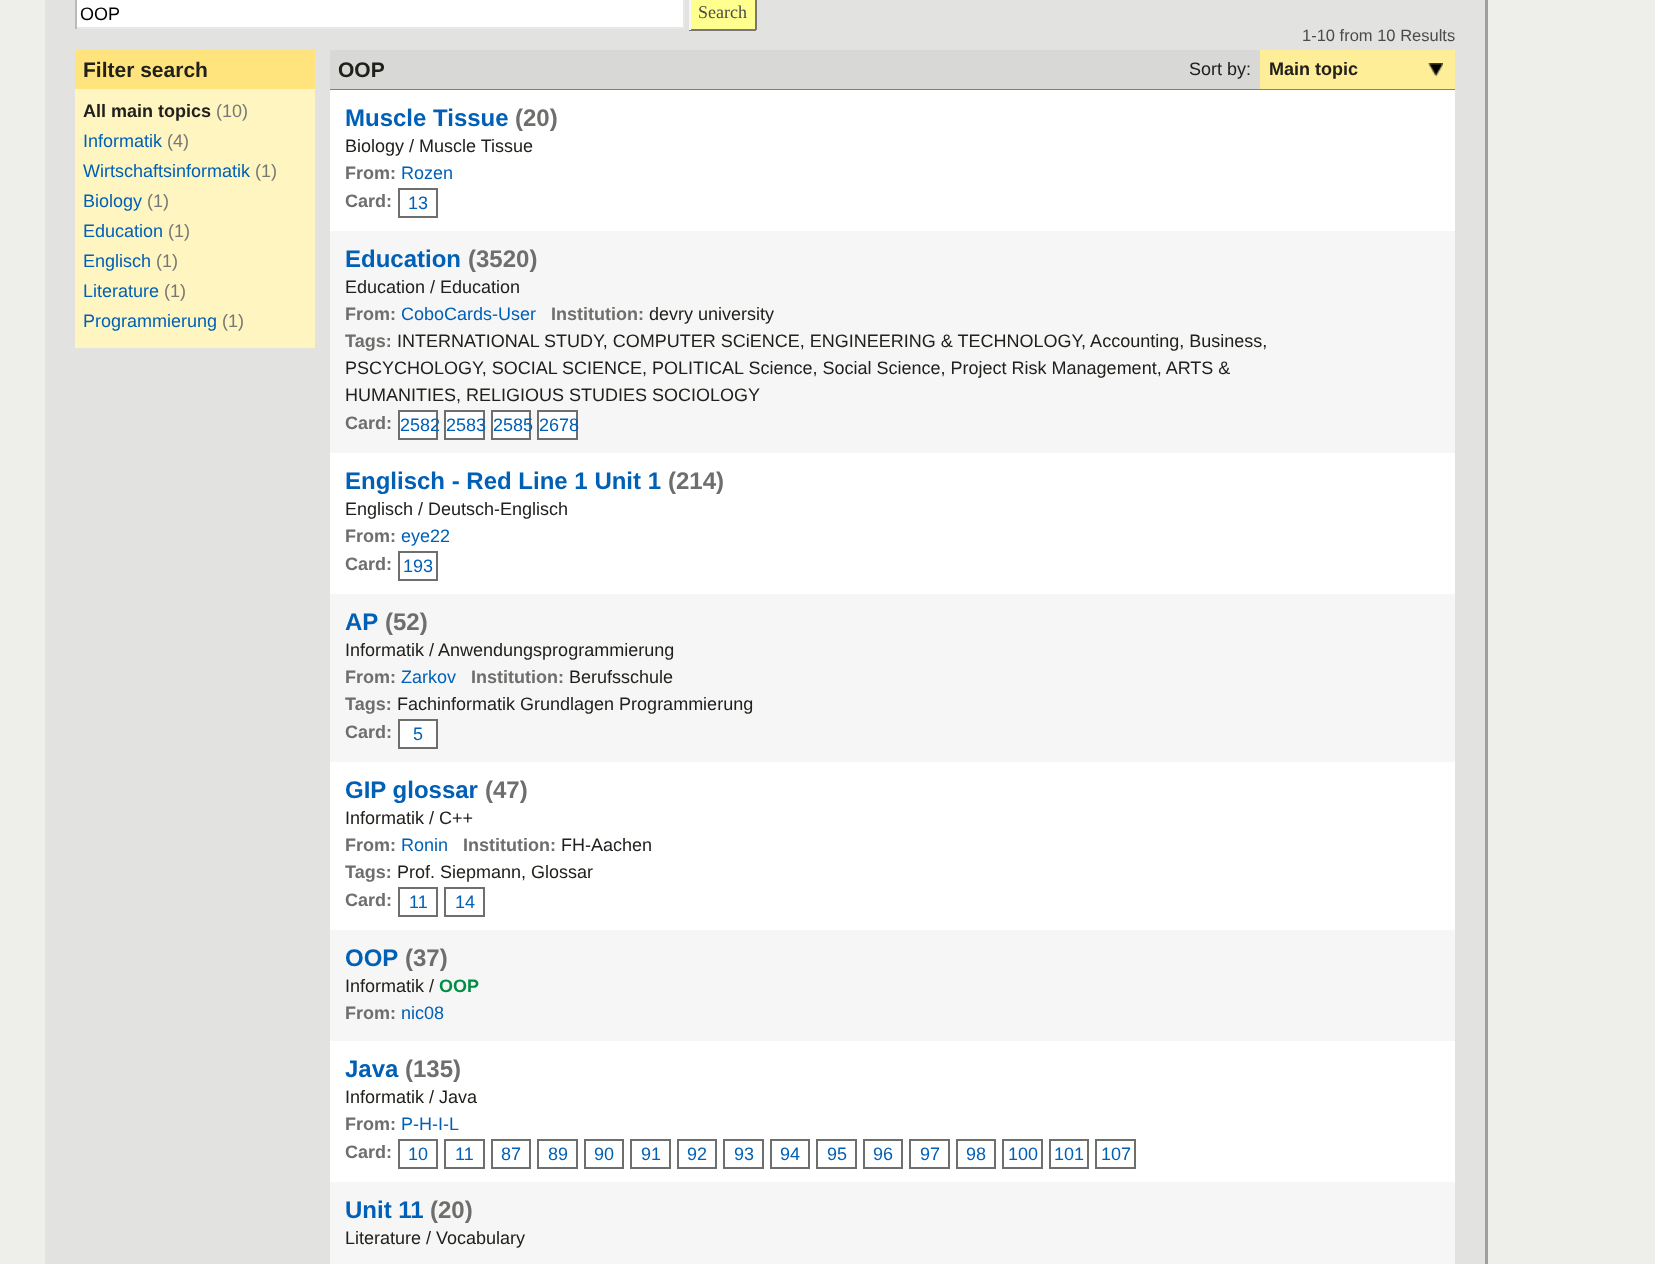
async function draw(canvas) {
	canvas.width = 1655;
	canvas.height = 1264;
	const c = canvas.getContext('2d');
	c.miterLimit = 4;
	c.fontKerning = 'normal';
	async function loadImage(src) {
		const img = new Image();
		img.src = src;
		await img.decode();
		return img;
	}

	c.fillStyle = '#eeefeb';
	c.fillRect(0, 0, 1655, 1264);
	for (const [x, y, w, h, color] of [
		[45, 0, 1440, 1264, '#e2e3e0'],
		[1485, 0, 3, 1264, '#9f9f9f'],
		[77, 0, 606, 27, '#fff'],
		[683, 0, 2, 29, '#e8e9e7'],
		[75, 27, 609, 2, '#e8e9e7'],
		[75, 0, 2, 29, '#bbbbba'],
	]) {
		c.fillStyle = color;
		c.fillRect(x, y, w, h);
	}
	c.font = '18px Liberation Sans';
	c.fillStyle = '#000';
	c.fillText('OOP', 80, 20);
	for (const [x, y, w, h, color] of [
		[691, 0, 64, 29, '#ffff90'],
		[755, 0, 2, 30, '#777876'],
		[689, 29, 67, 2, '#777876'],
		[689, 0, 2, 30, '#f6f6f6'],
	]) {
		c.fillStyle = color;
		c.fillRect(x, y, w, h);
	}
	c.font = '18px Liberation Serif';
	c.fillStyle = '#4b4c49';
	c.fillText('Search', 698, 18);
	c.fillStyle = '#ffe47e';
	c.fillRect(75, 50, 240, 39);
	c.font = 'bold 21px Liberation Sans';
	c.fillStyle = '#21201c';
	c.fillText('Filter search', 83, 77);
	c.fillStyle = '#fff5c1';
	c.fillRect(75, 89, 240, 259);
	c.font = 'bold 18px Liberation Sans';
	c.fillStyle = '#21201c';
	c.fillText('All main topics', 83, 117);
	c.font = '18px Liberation Sans';
	c.fillStyle = '#777876';
	c.fillText('(10)', 216, 117);
	c.fillStyle = '#0060b6';
	c.fillText('Informatik', 83, 147);
	c.fillStyle = '#777876';
	c.fillText('(4)', 167, 147);
	c.fillStyle = '#0060b6';
	c.fillText('Wirtschaftsinformatik', 83, 177);
	c.fillStyle = '#777876';
	c.fillText('(1)', 255, 177);
	c.fillStyle = '#0060b6';
	c.fillText('Biology', 83, 207);
	c.fillStyle = '#777876';
	c.fillText('(1)', 147, 207);
	c.fillStyle = '#0060b6';
	c.fillText('Education', 83, 237);
	c.fillStyle = '#777876';
	c.fillText('(1)', 168, 237);
	c.fillStyle = '#0060b6';
	c.fillText('Englisch', 83, 267);
	c.fillStyle = '#777876';
	c.fillText('(1)', 156, 267);
	c.fillStyle = '#0060b6';
	c.fillText('Literature', 83, 297);
	c.fillStyle = '#777876';
	c.fillText('(1)', 164, 297);
	c.fillStyle = '#0060b6';
	c.fillText('Programmierung', 83, 327);
	c.fillStyle = '#777876';
	c.fillText('(1)', 222, 327);
	c.font = '16.5px Liberation Sans';
	c.fillStyle = '#4b4c49';
	c.fillText('1-10 from 10 Results', 1302, 41);
	c.fillStyle = '#d8d9d7';
	c.fillRect(330, 50, 930, 39);
	c.fillStyle = '#80807f';
	c.fillRect(330, 89, 1125, 1);
	c.font = 'bold 21px Liberation Sans';
	c.fillStyle = '#21201c';
	c.fillText('OOP', 338, 77);
	c.font = '18px Liberation Sans';
	c.fillText('Sort by:', 1189, 75);
	c.fillStyle = '#ffee98';
	c.fillRect(1260, 50, 195, 39);
	c.font = 'bold 18px Liberation Sans';
	c.fillStyle = '#21201c';
	c.fillText('Main topic', 1269, 75);
	c.drawImage(await loadImage('img1.png'), 1428, 63, 15, 14);
	c.fillStyle = '#fff';
	c.fillRect(330, 90, 1125, 141);
	c.font = 'bold 24px Liberation Sans';
	c.fillStyle = '#0060b6';
	c.fillText('Muscle Tissue', 345, 126);
	c.fillStyle = '#6d6f6c';
	c.fillText('(20)', 515, 126);
	c.font = '18px Liberation Sans';
	c.fillStyle = '#21201c';
	c.fillText('Biology / Muscle Tissue', 345, 152);
	c.font = 'bold 18px Liberation Sans';
	c.fillStyle = '#6d6f6c';
	c.fillText('From:', 345, 179);
	c.font = '18px Liberation Sans';
	c.fillStyle = '#0060b6';
	c.fillText('Rozen', 401, 179);
	c.font = 'bold 18px Liberation Sans';
	c.fillStyle = '#6d6f6c';
	c.fillText('Card:', 345, 207);
	c.strokeStyle = '#6d6f6c';
	c.lineWidth = 2;
	c.strokeRect(399, 189, 38, 28);
	c.font = '18px Liberation Sans';
	c.fillStyle = '#0060b6';
	c.fillText('13', 408, 209);
	c.fillStyle = '#f6f6f6';
	c.fillRect(330, 231, 1125, 222);
	c.font = 'bold 24px Liberation Sans';
	c.fillStyle = '#0060b6';
	c.fillText('Education', 345, 267);
	c.fillStyle = '#6d6f6c';
	c.fillText('(3520)', 468, 267);
	c.font = '18px Liberation Sans';
	c.fillStyle = '#21201c';
	c.fillText('Education / Education', 345, 293);
	c.font = 'bold 18px Liberation Sans';
	c.fillStyle = '#6d6f6c';
	c.fillText('From:', 345, 320);
	c.font = '18px Liberation Sans';
	c.fillStyle = '#0060b6';
	c.fillText('CoboCards-User', 401, 320);
	c.font = 'bold 18px Liberation Sans';
	c.fillStyle = '#6d6f6c';
	c.fillText('Institution:', 551, 320);
	c.font = '18px Liberation Sans';
	c.fillStyle = '#21201c';
	c.fillText('devry university', 649, 320);
	c.font = 'bold 18px Liberation Sans';
	c.fillStyle = '#6d6f6c';
	c.fillText('Tags:', 345, 347);
	c.font = '18px Liberation Sans';
	c.fillStyle = '#21201c';
	for (const [text, x, y] of [
		['INTERNATIONAL STUDY, COMPUTER SCiENCE, ENGINEERING & TECHNOLOGY, Accounting, Business,', 397, 347],
		['PSCYCHOLOGY, SOCIAL SCIENCE, POLITICAL Science, Social Science, Project Risk Management, ARTS &', 345, 374],
		['HUMANITIES, RELIGIOUS STUDIES SOCIOLOGY', 345, 401],
	]) {
		c.fillText(text, x, y);
	}
	c.font = 'bold 18px Liberation Sans';
	c.fillStyle = '#6d6f6c';
	c.fillText('Card:', 345, 429);
	c.fillStyle = '#fff';
	c.beginPath();
	c.rect(399, 411, 38, 28);
	c.fill();
	c.stroke();
	c.font = '18px Liberation Sans';
	c.fillStyle = '#0060b6';
	c.fillText('2582', 400, 431);
	c.fillStyle = '#fff';
	c.beginPath();
	c.rect(445, 411, 39, 28);
	c.fill();
	c.stroke();
	c.fillStyle = '#0060b6';
	c.fillText('2583', 446, 431);
	c.fillStyle = '#fff';
	c.beginPath();
	c.rect(492, 411, 38, 28);
	c.fill();
	c.stroke();
	c.fillStyle = '#0060b6';
	c.fillText('2585', 493, 431);
	c.fillStyle = '#fff';
	c.beginPath();
	c.rect(538, 411, 39, 28);
	c.fill();
	c.stroke();
	c.fillStyle = '#0060b6';
	c.fillText('2678', 539, 431);
	c.fillStyle = '#fff';
	c.fillRect(330, 453, 1125, 141);
	c.font = 'bold 24px Liberation Sans';
	c.fillStyle = '#0060b6';
	c.fillText('Englisch - Red Line 1 Unit 1', 345, 489);
	c.fillStyle = '#6d6f6c';
	c.fillText('(214)', 668, 489);
	c.font = '18px Liberation Sans';
	c.fillStyle = '#21201c';
	c.fillText('Englisch / Deutsch-Englisch', 345, 515);
	c.font = 'bold 18px Liberation Sans';
	c.fillStyle = '#6d6f6c';
	c.fillText('From:', 345, 542);
	c.font = '18px Liberation Sans';
	c.fillStyle = '#0060b6';
	c.fillText('eye22', 401, 542);
	c.font = 'bold 18px Liberation Sans';
	c.fillStyle = '#6d6f6c';
	c.fillText('Card:', 345, 570);
	c.strokeRect(399, 552, 38, 28);
	c.font = '18px Liberation Sans';
	c.fillStyle = '#0060b6';
	c.fillText('193', 403, 572);
	c.fillStyle = '#f6f6f6';
	c.fillRect(330, 594, 1125, 168);
	c.font = 'bold 24px Liberation Sans';
	c.fillStyle = '#0060b6';
	c.fillText('AP', 345, 630);
	c.fillStyle = '#6d6f6c';
	c.fillText('(52)', 385, 630);
	c.font = '18px Liberation Sans';
	c.fillStyle = '#21201c';
	c.fillText('Informatik / Anwendungsprogrammierung', 345, 656);
	c.font = 'bold 18px Liberation Sans';
	c.fillStyle = '#6d6f6c';
	c.fillText('From:', 345, 683);
	c.font = '18px Liberation Sans';
	c.fillStyle = '#0060b6';
	c.fillText('Zarkov', 401, 683);
	c.font = 'bold 18px Liberation Sans';
	c.fillStyle = '#6d6f6c';
	c.fillText('Institution:', 471, 683);
	c.font = '18px Liberation Sans';
	c.fillStyle = '#21201c';
	c.fillText('Berufsschule', 569, 683);
	c.font = 'bold 18px Liberation Sans';
	c.fillStyle = '#6d6f6c';
	c.fillText('Tags:', 345, 710);
	c.font = '18px Liberation Sans';
	c.fillStyle = '#21201c';
	c.fillText('Fachinformatik Grundlagen Programmierung', 397, 710);
	c.font = 'bold 18px Liberation Sans';
	c.fillStyle = '#6d6f6c';
	c.fillText('Card:', 345, 738);
	c.fillStyle = '#fff';
	c.beginPath();
	c.rect(399, 720, 38, 28);
	c.fill();
	c.stroke();
	c.font = '18px Liberation Sans';
	c.fillStyle = '#0060b6';
	c.fillText('5', 413, 740);
	c.fillStyle = '#fff';
	c.fillRect(330, 762, 1125, 168);
	c.font = 'bold 24px Liberation Sans';
	c.fillStyle = '#0060b6';
	c.fillText('GIP glossar', 345, 798);
	c.fillStyle = '#6d6f6c';
	c.fillText('(47)', 485, 798);
	c.font = '18px Liberation Sans';
	c.fillStyle = '#21201c';
	c.fillText('Informatik / C++', 345, 824);
	c.font = 'bold 18px Liberation Sans';
	c.fillStyle = '#6d6f6c';
	c.fillText('From:', 345, 851);
	c.font = '18px Liberation Sans';
	c.fillStyle = '#0060b6';
	c.fillText('Ronin', 401, 851);
	c.font = 'bold 18px Liberation Sans';
	c.fillStyle = '#6d6f6c';
	c.fillText('Institution:', 463, 851);
	c.font = '18px Liberation Sans';
	c.fillStyle = '#21201c';
	c.fillText('FH-Aachen', 561, 851);
	c.font = 'bold 18px Liberation Sans';
	c.fillStyle = '#6d6f6c';
	c.fillText('Tags:', 345, 878);
	c.font = '18px Liberation Sans';
	c.fillStyle = '#21201c';
	c.fillText('Prof. Siepmann, Glossar', 397, 878);
	c.font = 'bold 18px Liberation Sans';
	c.fillStyle = '#6d6f6c';
	c.fillText('Card:', 345, 906);
	c.strokeRect(399, 888, 38, 28);
	c.font = '18px Liberation Sans';
	c.fillStyle = '#0060b6';
	c.fillText('11', 409, 908);
	c.strokeRect(445, 888, 39, 28);
	c.fillText('14', 455, 908);
	c.fillStyle = '#f6f6f6';
	c.fillRect(330, 930, 1125, 111);
	c.font = 'bold 24px Liberation Sans';
	c.fillStyle = '#0060b6';
	c.fillText('OOP', 345, 966);
	c.fillStyle = '#6d6f6c';
	c.fillText('(37)', 405, 966);
	c.font = '18px Liberation Sans';
	c.fillStyle = '#21201c';
	c.fillText('Informatik /', 345, 992);
	c.font = 'bold 18px Liberation Sans';
	c.fillStyle = '#008e45';
	c.fillText('OOP', 439, 992);
	c.fillStyle = '#6d6f6c';
	c.fillText('From:', 345, 1019);
	c.font = '18px Liberation Sans';
	c.fillStyle = '#0060b6';
	c.fillText('nic08', 401, 1019);
	c.fillStyle = '#fff';
	c.fillRect(330, 1041, 1125, 141);
	c.font = 'bold 24px Liberation Sans';
	c.fillStyle = '#0060b6';
	c.fillText('Java', 345, 1077);
	c.fillStyle = '#6d6f6c';
	c.fillText('(135)', 405, 1077);
	c.font = '18px Liberation Sans';
	c.fillStyle = '#21201c';
	c.fillText('Informatik / Java', 345, 1103);
	c.font = 'bold 18px Liberation Sans';
	c.fillStyle = '#6d6f6c';
	c.fillText('From:', 345, 1130);
	c.font = '18px Liberation Sans';
	c.fillStyle = '#0060b6';
	c.fillText('P-H-I-L', 401, 1130);
	c.font = 'bold 18px Liberation Sans';
	c.fillStyle = '#6d6f6c';
	c.fillText('Card:', 345, 1158);
	c.strokeRect(399, 1140, 38, 28);
	c.font = '18px Liberation Sans';
	c.fillStyle = '#0060b6';
	c.fillText('10', 408, 1160);
	c.strokeRect(445, 1140, 39, 28);
	c.fillText('11', 455, 1160);
	c.strokeRect(492, 1140, 38, 28);
	c.fillText('87', 501, 1160);
	c.strokeRect(538, 1140, 39, 28);
	c.fillText('89', 548, 1160);
	c.strokeRect(585, 1140, 38, 28);
	c.fillText('90', 594, 1160);
	c.strokeRect(631, 1140, 39, 28);
	c.fillText('91', 641, 1160);
	c.strokeRect(678, 1140, 38, 28);
	c.fillText('92', 687, 1160);
	c.strokeRect(724, 1140, 39, 28);
	c.fillText('93', 734, 1160);
	c.strokeRect(771, 1140, 38, 28);
	c.fillText('94', 780, 1160);
	c.strokeRect(817, 1140, 39, 28);
	c.fillText('95', 827, 1160);
	c.strokeRect(864, 1140, 38, 28);
	c.fillText('96', 873, 1160);
	c.strokeRect(910, 1140, 39, 28);
	c.fillText('97', 920, 1160);
	c.strokeRect(957, 1140, 38, 28);
	c.fillText('98', 966, 1160);
	c.strokeRect(1003, 1140, 39, 28);
	c.fillText('100', 1008, 1160);
	c.strokeRect(1050, 1140, 38, 28);
	c.fillText('101', 1054, 1160);
	c.strokeRect(1096, 1140, 39, 28);
	c.fillText('107', 1101, 1160);
	c.fillStyle = '#f6f6f6';
	c.fillRect(330, 1182, 1125, 82);
	c.font = 'bold 24px Liberation Sans';
	c.fillStyle = '#0060b6';
	c.fillText('Unit 11', 345, 1218);
	c.fillStyle = '#6d6f6c';
	c.fillText('(20)', 430, 1218);
	c.font = '18px Liberation Sans';
	c.fillStyle = '#21201c';
	c.fillText('Literature / Vocabulary', 345, 1244);
}

draw(document.querySelector('canvas'));
